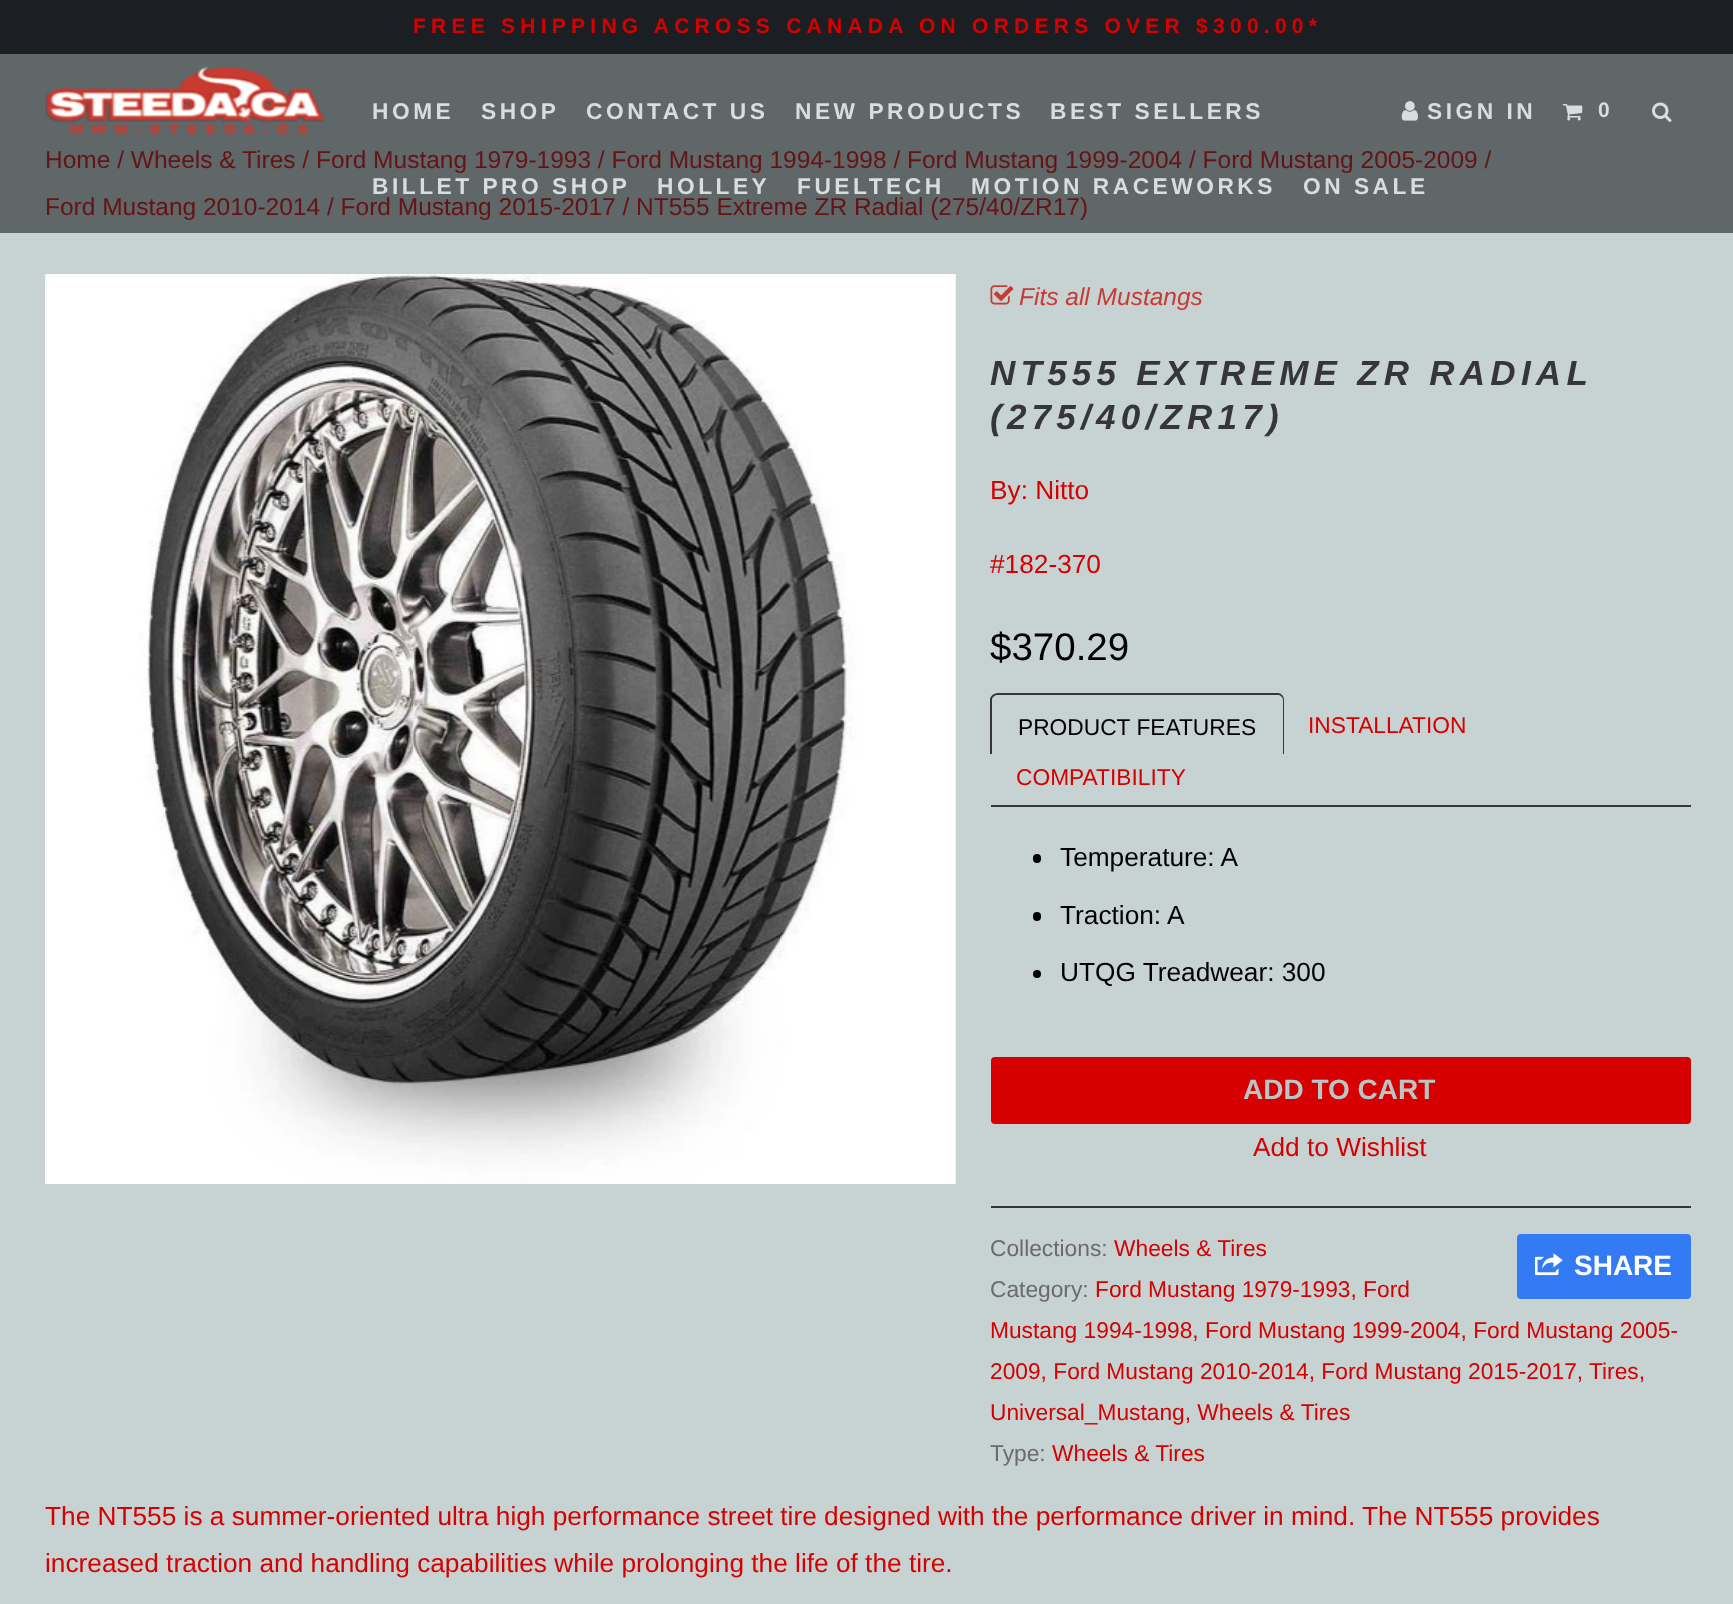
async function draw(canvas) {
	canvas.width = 1733;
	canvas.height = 1604;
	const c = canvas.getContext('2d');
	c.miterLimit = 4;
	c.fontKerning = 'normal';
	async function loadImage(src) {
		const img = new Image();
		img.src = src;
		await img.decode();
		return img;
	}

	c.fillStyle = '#c7d2d2';
	c.fillRect(0, 0, 1733, 1604);
	c.fillStyle = '#606769';
	c.fillRect(0, 54, 1733, 179);
	c.fillStyle = '#1b1f23';
	c.fillRect(0, 0, 1733, 54);
	c.letterSpacing = '5.25px';
	c.font = 'bold 21px Liberation Sans';
	c.fillStyle = '#d60000';
	c.fillText('FREE SHIPPING ACROSS CANADA ON ORDERS OVER $300.00*', 413, 33);
	c.drawImage(await loadImage('img1.png'), 45, 66, 280, 69);
	c.letterSpacing = '3.5px';
	c.font = 'bold 22.75px Liberation Sans';
	c.fillStyle = '#d7dede';
	for (const [text, x, y] of [
		['HOME', 372, 119],
		['SHOP', 481, 119],
		['CONTACT US', 586, 119],
		['NEW PRODUCTS', 795, 119],
		['BEST SELLERS', 1050, 119],
		['BILLET PRO SHOP', 372, 194],
		['HOLLEY', 657, 194],
		['FUELTECH', 797, 194],
		['MOTION RACEWORKS', 971, 194],
		['ON SALE', 1303, 194],
	]) {
		c.fillText(text, x, y);
	}
	c.drawImage(await loadImage('img2.png'), 1401, 101, 17, 20);
	c.fillText('SIGN IN', 1427, 119);
	c.drawImage(await loadImage('img3.png'), 1562, 104, 21, 17);
	c.font = 'bold 21px Liberation Sans';
	c.fillText('0', 1598, 117);
	c.drawImage(await loadImage('img4.png'), 1652, 102, 20, 20);
	c.letterSpacing = '0px';
	c.font = '24.5px Liberation Sans';
	c.fillStyle = '#661315';
	c.fillText('Home / Wheels & Tires / Ford Mustang 1979-1993 / Ford Mustang 1994-1998 / Ford Mustang 1999-2004 / Ford Mustang 2005-2009 /', 45, 168);
	c.fillText('Ford Mustang 2010-2014 / Ford Mustang 2015-2017 / NT555 Extreme ZR Radial (275/40/ZR17)', 45, 215);
	c.drawImage(await loadImage('img5.png'), 45, 274, 910, 910);
	c.fillStyle = '#f1f4f4';
	c.fillRect(955, 274, 1, 910);
	c.drawImage(await loadImage('img6.png'), 990, 285, 24, 20);
	c.font = 'italic 24.5px Liberation Sans';
	c.fillStyle = '#c83b32';
	c.fillText('Fits all Mustangs', 1019, 305);
	c.letterSpacing = '5.25px';
	c.font = 'italic bold 35px Liberation Sans';
	c.fillStyle = '#363636';
	c.fillText('NT555 EXTREME ZR RADIAL', 990, 385);
	c.fillText('(275/40/ZR17)', 990, 429);
	c.letterSpacing = '0px';
	c.font = '26.25px Liberation Sans';
	c.fillStyle = '#d60000';
	c.fillText('By: Nitto', 990, 499);
	c.fillText('#182-370', 990, 573);
	c.font = '38.5px Liberation Sans';
	c.fillStyle = '#000';
	c.fillText('$370.29', 990, 660);
	c.fillStyle = '#363636';
	c.fillRect(991, 805, 700, 2);
	c.beginPath();
	c.moveTo(998, 693);
	c.lineTo(1278, 693);
	c.bezierCurveTo(1281, 693, 1284, 696, 1284, 700);
	c.lineTo(1284, 754);
	c.lineTo(990, 754);
	c.lineTo(990, 700);
	c.bezierCurveTo(990, 696, 994, 693, 998, 693);
	c.closePath();
	c.moveTo(998, 695);
	c.lineTo(1278, 695);
	c.bezierCurveTo(1280, 695, 1283, 697, 1283, 700);
	c.lineTo(1283, 754);
	c.lineTo(992, 754);
	c.lineTo(992, 700);
	c.bezierCurveTo(992, 697, 995, 695, 998, 695);
	c.closePath();
	c.fill('evenodd');
	c.font = '22.75px Liberation Sans';
	c.fillStyle = '#000';
	c.fillText('PRODUCT FEATURES', 1018, 735);
	c.fillStyle = '#d60000';
	c.fillText('INSTALLATION', 1308, 733);
	c.fillText('COMPATIBILITY', 1016, 785);
	c.fillStyle = '#000';
	c.beginPath();
	c.roundRect(1033, 854, 8, 9, 4);
	c.fill();
	c.font = '26.25px Liberation Sans';
	c.fillText('Temperature: A', 1060, 866);
	c.beginPath();
	c.roundRect(1033, 912, 8, 9, 4);
	c.fill();
	c.fillText('Traction: A', 1060, 924);
	c.beginPath();
	c.arc(1037, 974, 4, 0, 2 * Math.PI);
	c.fill();
	c.fillText('UTQG Treadwear: 300', 1060, 981);
	c.fillStyle = '#d60000';
	c.beginPath();
	c.roundRect(991, 1057, 700, 67, 4);
	c.fill();
	c.font = 'bold 28px Liberation Sans';
	c.fillStyle = '#b8c6c6';
	c.fillText('ADD TO CART', 1243, 1099);
	c.font = '26.25px Liberation Sans';
	c.fillStyle = '#d60000';
	c.fillText('Add to Wishlist', 1253, 1156);
	c.fillStyle = '#363636';
	c.fillRect(991, 1206, 700, 2);
	c.font = '22.75px Liberation Sans';
	c.fillStyle = '#6b6b6b';
	c.fillText('Collections:', 990, 1256);
	c.fillStyle = '#d60000';
	c.fillText('Wheels & Tires', 1114, 1256);
	c.fillStyle = '#337af5';
	c.beginPath();
	c.roundRect(1517, 1234, 174, 65, 4);
	c.fill();
	c.drawImage(await loadImage('img7.png'), 1535, 1253, 28, 23);
	c.font = 'bold 28px Liberation Sans';
	c.fillStyle = '#fff';
	c.fillText('SHARE', 1574, 1275);
	c.font = '22.75px Liberation Sans';
	c.fillStyle = '#6b6b6b';
	c.fillText('Category:', 990, 1297);
	c.fillStyle = '#d60000';
	for (const [text, x, y] of [
		['Ford Mustang 1979-1993, Ford', 1095, 1297],
		['Mustang 1994-1998, Ford Mustang 1999-2004, Ford Mustang 2005-', 990, 1338],
		['2009, Ford Mustang 2010-2014, Ford Mustang 2015-2017,', 990, 1379],
		['Tires,', 1589, 1379],
		['Universal_Mustang, Wheels & Tires', 990, 1420],
	]) {
		c.fillText(text, x, y);
	}
	c.fillStyle = '#6b6b6b';
	c.fillText('Type:', 990, 1461);
	c.fillStyle = '#d60000';
	c.fillText('Wheels & Tires', 1052, 1461);
	c.font = '26.25px Liberation Sans';
	c.fillText('The NT555 is a summer-oriented ultra high performance street tire designed with the performance driver in mind. The NT555 provides', 45, 1525);
	c.fillText('increased traction and handling capabilities while prolonging the life of the tire.', 45, 1572);
}

draw(document.querySelector('canvas'));
